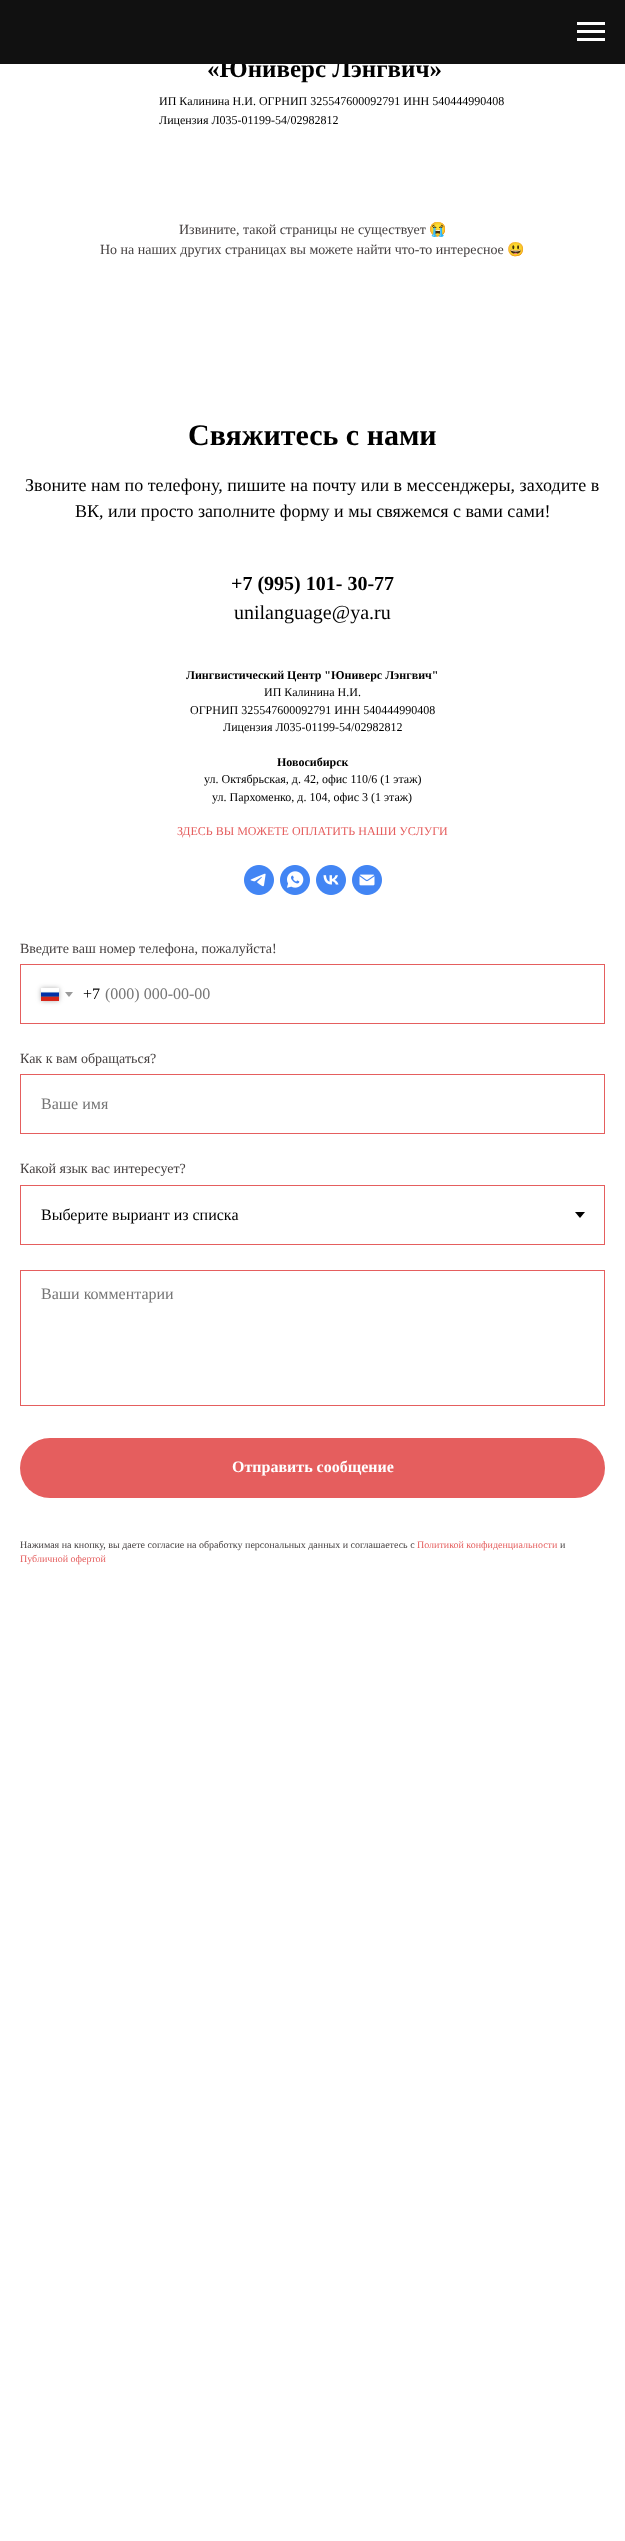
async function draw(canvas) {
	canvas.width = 625;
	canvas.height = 2541;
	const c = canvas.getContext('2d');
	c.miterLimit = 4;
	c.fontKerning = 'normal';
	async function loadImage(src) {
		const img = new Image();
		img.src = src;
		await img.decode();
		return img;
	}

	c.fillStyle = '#fff';
	c.fillRect(0, 0, 625, 2541);
	c.font = 'bold 25px Liberation Serif';
	c.fillStyle = '#000';
	c.fillText('«Юниверс Лэнгвич»', 207, 77);
	for (const [x, y, w, h, color] of [
		[0, 0, 625, 64, '#111'],
		[577, 22, 28, 3, '#fff'],
		[577, 30, 28, 3, '#fff'],
		[577, 38, 28, 3, '#fff'],
	]) {
		c.fillStyle = color;
		c.fillRect(x, y, w, h);
	}
	c.font = '12px Liberation Serif';
	c.fillStyle = '#000';
	c.fillText('ИП Калинина Н.И. ОГРНИП 325547600092791 ИНН 540444990408', 159, 105);
	c.fillText('Лицензия Л035-01199-54/02982812', 159, 124);
	c.font = '14px Liberation Serif';
	c.fillStyle = '#454040';
	c.fillText('Извините, такой страницы не существует', 179, 234);
	c.font = '14px Noto Color Emoji';
	c.fillText('😭', 429, 234);
	c.font = '14px Liberation Serif';
	c.fillText('Но на наших других страницах вы можете найти что-то интересное', 100, 254);
	c.font = '14px Noto Color Emoji';
	c.fillText('😃', 507, 254);
	c.font = 'bold 30px Liberation Serif';
	c.fillStyle = '#000';
	c.fillText('Свяжитесь с нами', 188, 445);
	c.font = '18px Liberation Serif';
	c.fillText('Звоните нам по телефону, пишите на почту или в мессенджеры, заходите в', 25, 491);
	c.fillText('ВК, или просто заполните форму и мы свяжемся с вами сами!', 75, 517);
	c.font = 'bold 20px Liberation Serif';
	c.fillText('+7 (995) 101- 30-77', 231, 590);
	c.font = '20px Liberation Serif';
	c.fillText('unilanguage@ya.ru', 234, 619);
	c.font = 'bold 12px Liberation Serif';
	c.fillText('Лингвистический Центр "Юниверс Лэнгвич"', 186, 679);
	c.font = '12px Liberation Serif';
	for (const [text, x, y] of [
		['ИП Калинина Н.И.', 264, 696],
		['ОГРНИП 325547600092791 ИНН 540444990408', 190, 714],
		['Лицензия Л035-01199-54/02982812', 223, 731],
	]) {
		c.fillText(text, x, y);
	}
	c.font = 'bold 12px Liberation Serif';
	c.fillText('Новосибирск', 277, 766);
	c.font = '12px Liberation Serif';
	c.fillText('ул. Октябрьская, д. 42, офис 110/6 (1 этаж)', 204, 783);
	c.fillText('ул. Пархоменко, д. 104, офис 3 (1 этаж)', 212, 801);
	c.fillStyle = '#e55e5e';
	c.fillText('ЗДЕСЬ ВЫ МОЖЕТЕ ОПЛАТИТЬ НАШИ УСЛУГИ', 177, 835);
	c.drawImage(await loadImage('img1.png'), 244, 865, 30, 30);
	c.drawImage(await loadImage('img2.png'), 280, 865, 30, 30);
	c.drawImage(await loadImage('img3.png'), 316, 865, 30, 30);
	c.drawImage(await loadImage('img4.png'), 352, 865, 30, 30);
	c.font = '14px Liberation Serif';
	c.fillStyle = '#454040';
	c.fillText('Введите ваш номер телефона, пожалуйста!', 20, 953);
	c.strokeStyle = '#e55e5e';
	c.strokeRect(20.5, 964.5, 584, 59);
	c.fillStyle = '#0000004d';
	c.filter = 'blur(2.5px)';
	c.beginPath();
	c.rect(41, 988, 18, 13);
	c.fill();
	c.filter = 'none';
	c.drawImage(await loadImage('img5.png'), 41, 988, 18, 13);
	c.fillStyle = '#9a9a9a';
	c.beginPath();
	c.moveTo(65, 992);
	c.lineTo(73, 992);
	c.lineTo(69, 997);
	c.closePath();
	c.fill();
	c.font = '16px Liberation Serif';
	c.fillStyle = '#000';
	c.fillText('+7', 83, 999);
	c.fillStyle = '#757575';
	c.fillText('(000) 000-00-00', 105, 999);
	c.font = '14px Liberation Serif';
	c.fillStyle = '#454040';
	c.fillText('Как к вам обращаться?', 20, 1063);
	c.strokeRect(20.5, 1074.5, 584, 59);
	c.font = '16px Liberation Serif';
	c.fillStyle = '#757575';
	c.fillText('Ваше имя', 41, 1109);
	c.font = '14px Liberation Serif';
	c.fillStyle = '#454040';
	c.fillText('Какой язык вас интересует?', 20, 1173);
	c.strokeRect(20.5, 1185.5, 584, 59);
	c.font = '16px Liberation Serif';
	c.fillStyle = '#000';
	c.fillText('Выберите выриант из списка', 41, 1220);
	c.beginPath();
	c.moveTo(575, 1212);
	c.lineTo(585, 1212);
	c.lineTo(580, 1218);
	c.closePath();
	c.fill();
	c.strokeRect(20.5, 1270.5, 584, 135);
	c.fillStyle = '#757575';
	c.fillText('Ваши комментарии', 41, 1299);
	c.fillStyle = '#e55e5e';
	c.beginPath();
	c.roundRect(20, 1438, 585, 60, 30);
	c.fill();
	c.font = 'bold 16px Liberation Serif';
	c.fillStyle = '#fff';
	c.fillText('Отправить сообщение', 232, 1472);
	c.font = '10px Liberation Serif';
	c.fillStyle = '#454040';
	c.fillText('Нажимая на кнопку, вы даете согласие на обработку персональных данных и соглашаетесь c', 20, 1548);
	c.fillStyle = '#e55e5e';
	c.fillText('Политикой конфиденциальности', 417, 1548);
	c.fillStyle = '#454040';
	c.fillText('и', 560, 1548);
	c.fillStyle = '#e55e5e';
	c.fillText('Публичной офертой', 20, 1562);
}

draw(document.querySelector('canvas'));
